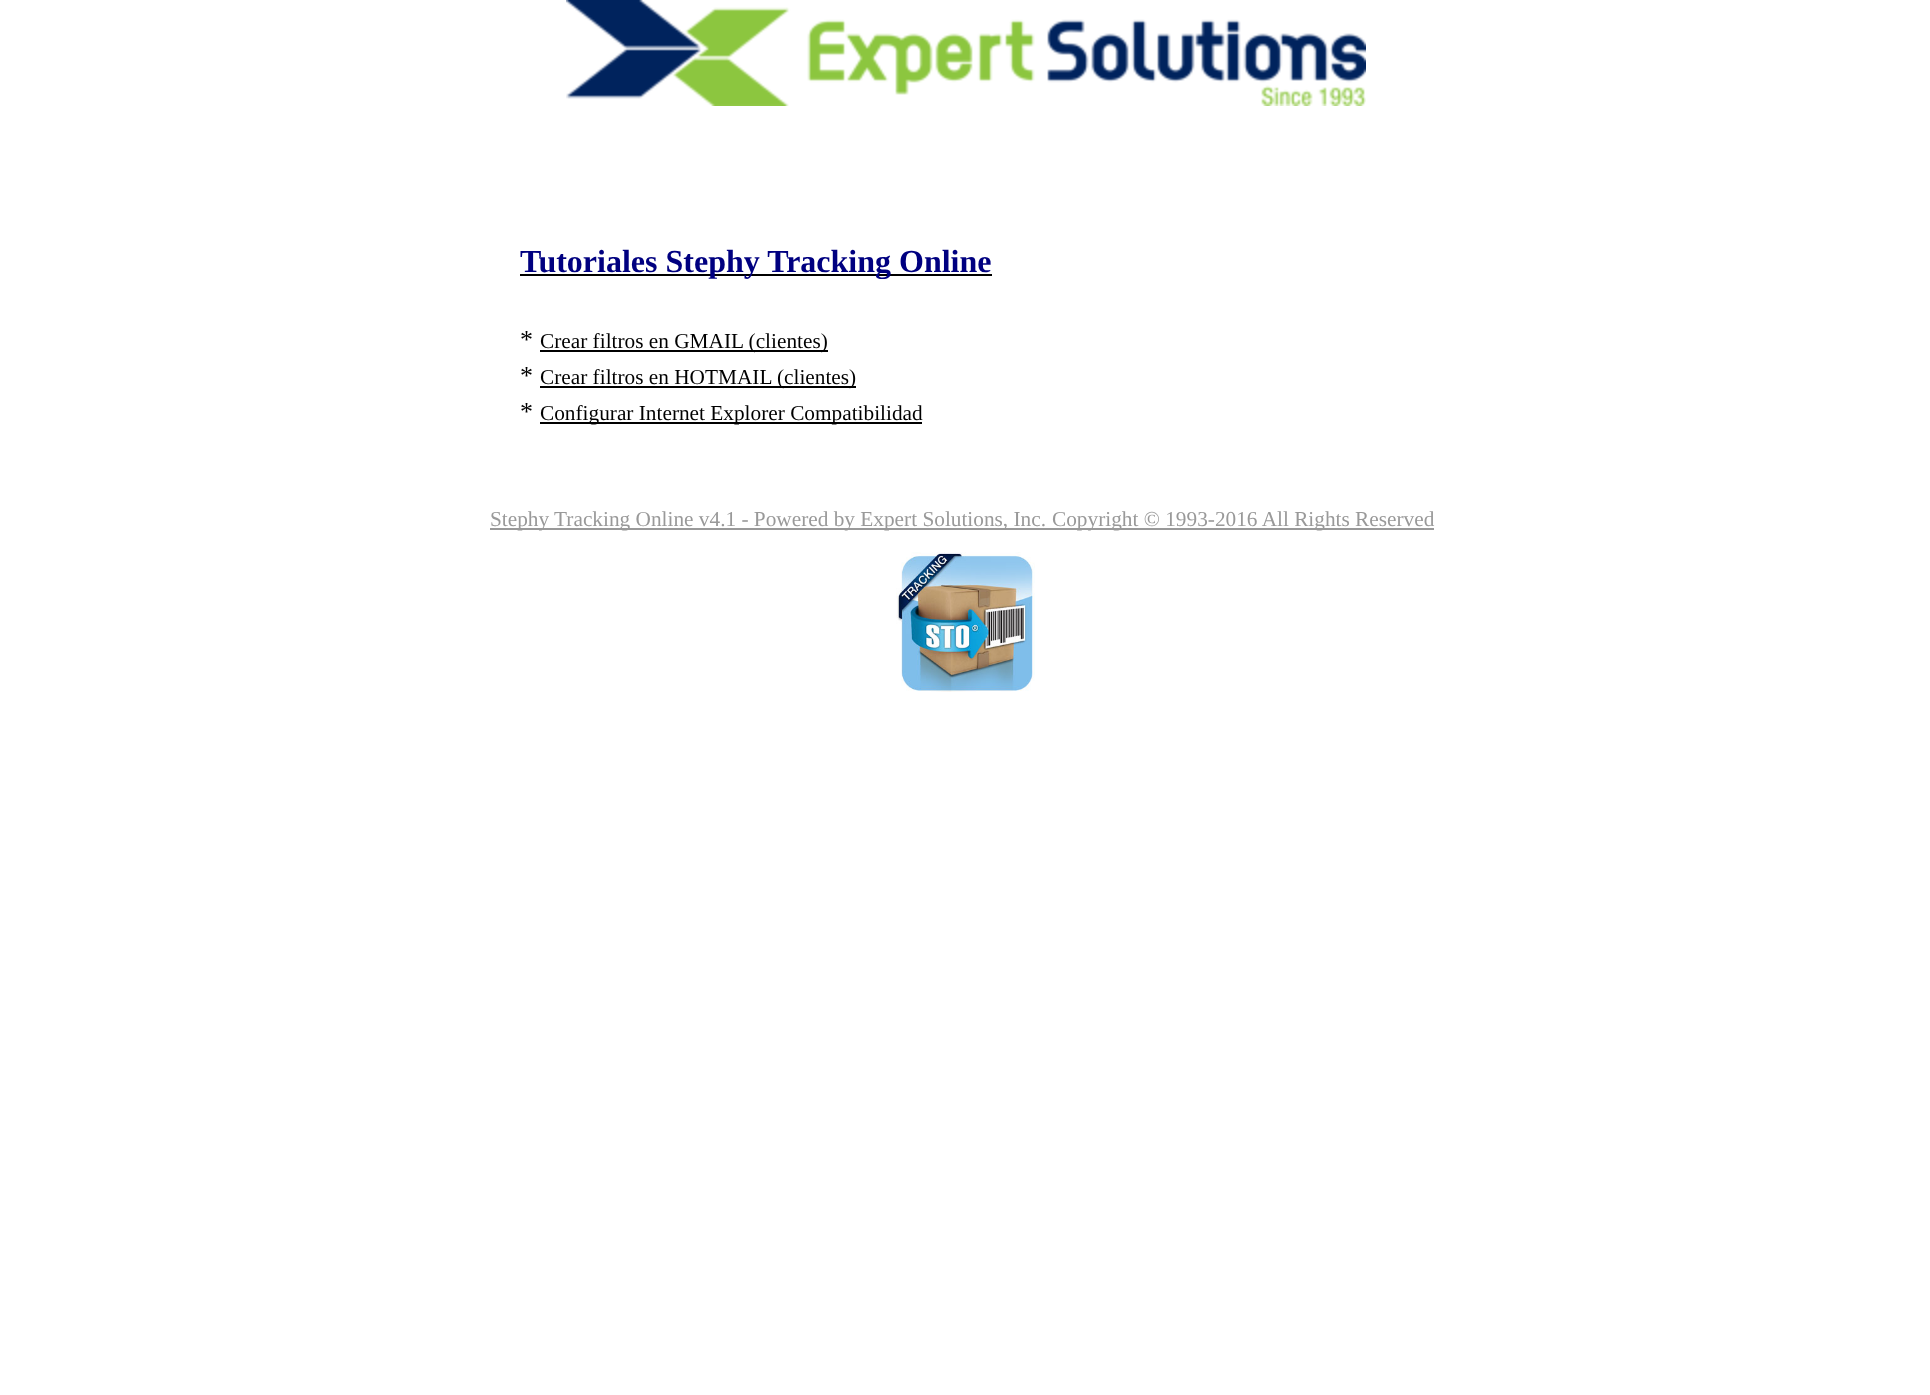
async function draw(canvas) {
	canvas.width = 1930;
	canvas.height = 1395;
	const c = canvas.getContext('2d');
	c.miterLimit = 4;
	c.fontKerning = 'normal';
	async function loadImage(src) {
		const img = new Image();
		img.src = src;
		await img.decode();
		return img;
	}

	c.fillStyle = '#fff';
	c.fillRect(0, 0, 1930, 1395);
	c.drawImage(await loadImage('img1.png'), 566, 0, 800, 106);
	c.fillStyle = '#000';
	c.fillRect(520, 274, 472, 2);
	c.font = 'bold 32px Liberation Serif';
	c.fillStyle = '#000080';
	c.fillText('Tutoriales Stephy Tracking Online', 520, 272);
	c.font = '26px Liberation Serif';
	c.fillStyle = '#000';
	c.fillText('*', 520, 348);
	c.fillRect(540, 350, 288, 2);
	c.font = '21.3px Liberation Serif';
	c.fillText('Crear filtros en GMAIL (clientes)', 540, 348);
	c.font = '26px Liberation Serif';
	c.fillText('*', 520, 384);
	c.fillRect(540, 386, 316, 2);
	c.font = '21.3px Liberation Serif';
	c.fillText('Crear filtros en HOTMAIL (clientes)', 540, 384);
	c.font = '26px Liberation Serif';
	c.fillText('*', 520, 420);
	c.fillRect(540, 422, 382, 2);
	c.font = '21.3px Liberation Serif';
	c.fillText('Configurar Internet Explorer Compatibilidad', 540, 420);
	c.fillStyle = '#999';
	c.fillRect(490, 528, 944, 2);
	c.fillText('Stephy Tracking Online v4.1 - Powered by Expert Solutions, Inc.', 490, 526);
	c.fillText('Copyright © 1993-2016 All Rights Reserved', 1052, 526);
	c.drawImage(await loadImage('img2.png'), 896, 552, 139, 140);
}

draw(document.querySelector('canvas'));
